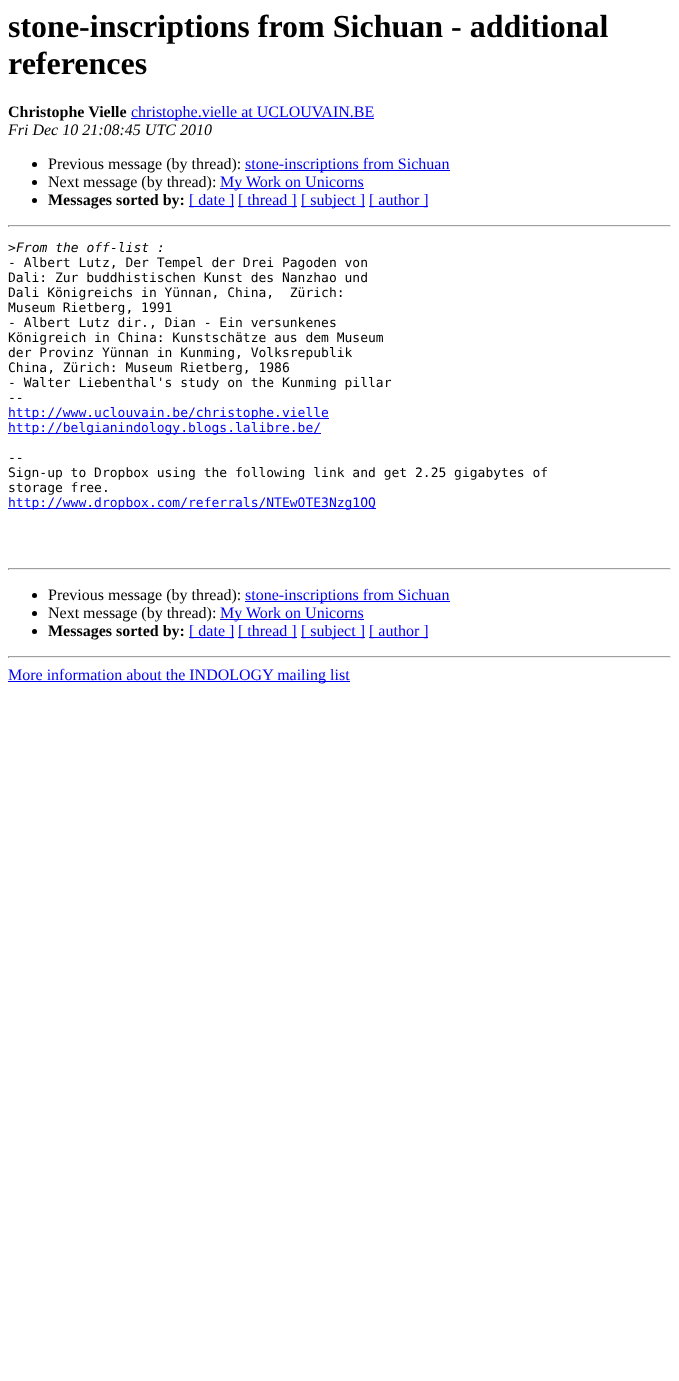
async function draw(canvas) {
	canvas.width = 679;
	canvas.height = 1381;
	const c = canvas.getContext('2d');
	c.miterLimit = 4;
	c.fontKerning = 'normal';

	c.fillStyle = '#fff';
	c.fillRect(0, 0, 679, 1381);
	c.font = 'bold 32px Liberation Serif';
	c.fillStyle = '#000';
	c.fillText('stone-inscriptions from Sichuan - additional', 8, 37);
	c.fillText('references', 8, 74);
	c.font = 'bold 16px Liberation Serif';
	c.fillText('Christophe Vielle', 8, 117);
	c.fillStyle = '#00e';
	c.fillRect(131, 118, 243, 1);
	c.font = '16px Liberation Serif';
	c.fillText('christophe.vielle at UCLOUVAIN.BE', 131, 117);
	c.font = 'italic 16px Liberation Serif';
	c.fillStyle = '#000';
	c.fillText('Fri Dec 10 21:08:45 UTC 2010', 8, 135);
	c.beginPath();
	c.arc(34.5, 164.5, 2.5, 0, 2 * Math.PI);
	c.fill();
	c.font = '16px Liberation Serif';
	c.fillText('Previous message (by thread):', 48, 169);
	c.fillStyle = '#00e';
	c.fillRect(245, 170, 205, 1);
	c.fillText('stone-inscriptions from Sichuan', 245, 169);
	c.fillStyle = '#000';
	c.beginPath();
	c.arc(34.5, 182.5, 2.5, 0, 2 * Math.PI);
	c.fill();
	c.fillText('Next message (by thread):', 48, 187);
	c.fillStyle = '#00e';
	c.fillRect(220, 188, 144, 1);
	c.fillText('My Work on Unicorns', 220, 187);
	c.fillStyle = '#000';
	c.beginPath();
	c.arc(34.5, 200.5, 2.5, 0, 2 * Math.PI);
	c.fill();
	c.font = 'bold 16px Liberation Serif';
	c.fillText('Messages sorted by:', 48, 205);
	c.fillStyle = '#00e';
	c.fillRect(189, 206, 45, 1);
	c.font = '16px Liberation Serif';
	c.fillText('[ date ]', 189, 205);
	c.fillRect(238, 206, 59, 1);
	c.fillText('[ thread ]', 238, 205);
	c.fillRect(301, 206, 64, 1);
	c.fillText('[ subject ]', 301, 205);
	c.fillRect(369, 206, 59, 1);
	c.fillText('[ author ]', 369, 205);
	for (const [x, y, w, h, color] of [
		[8, 225, 663, 1, '#9f9f9f'],
		[670, 225, 1, 2, '#eee'],
		[8, 226, 663, 1, '#eee'],
		[8, 225, 1, 2, '#9f9f9f'],
	]) {
		c.fillStyle = color;
		c.fillRect(x, y, w, h);
	}
	c.font = '13px DejaVu Sans Mono';
	c.fillStyle = '#000';
	c.fillText('>', 8, 252);
	c.font = 'italic 13px DejaVu Sans Mono';
	c.fillText('From the off-list :', 16, 252);
	c.font = '13px DejaVu Sans Mono';
	for (const [text, x, y] of [
		['- Albert Lutz, Der Tempel der Drei Pagoden von', 8, 267],
		['Dali: Zur buddhistischen Kunst des Nanzhao und', 8, 282],
		['Dali Königreichs in Yünnan, China,  Zürich:', 8, 297],
		['Museum Rietberg, 1991', 8, 312],
		['- Albert Lutz dir., Dian - Ein versunkenes', 8, 327],
		['Königreich in China: Kunstschätze aus dem Museum', 8, 342],
		['der Provinz Yünnan in Kunming, Volksrepublik', 8, 357],
		['China, Zürich: Museum Rietberg, 1986', 8, 372],
		['- Walter Liebenthal\'s study on the Kunming pillar', 8, 387],
		['--', 8, 402],
	]) {
		c.fillText(text, x, y);
	}
	c.fillStyle = '#00e';
	c.fillRect(8, 418, 321, 1);
	c.fillText('http://www.uclouvain.be/christophe.vielle', 8, 417);
	c.fillRect(8, 433, 313, 1);
	c.fillText('http://belgianindology.blogs.lalibre.be/', 8, 432);
	c.fillStyle = '#000';
	for (const [text, x, y] of [
		['--', 8, 462],
		['Sign-up to Dropbox using the following link and get 2.25 gigabytes of', 8, 477],
		['storage free.', 8, 492],
	]) {
		c.fillText(text, x, y);
	}
	c.fillStyle = '#00e';
	c.fillRect(8, 508, 368, 1);
	c.fillText('http://www.dropbox.com/referrals/NTEwOTE3Nzg1OQ', 8, 507);
	for (const [x, y, w, h, color] of [
		[8, 568, 663, 1, '#9f9f9f'],
		[670, 568, 1, 2, '#eee'],
		[8, 569, 663, 1, '#eee'],
		[8, 568, 1, 2, '#9f9f9f'],
	]) {
		c.fillStyle = color;
		c.fillRect(x, y, w, h);
	}
	c.fillStyle = '#000';
	c.beginPath();
	c.arc(34.5, 595.5, 2.5, 0, 2 * Math.PI);
	c.fill();
	c.font = '16px Liberation Serif';
	c.fillText('Previous message (by thread):', 48, 600);
	c.fillStyle = '#00e';
	c.fillRect(245, 601, 205, 1);
	c.fillText('stone-inscriptions from Sichuan', 245, 600);
	c.fillStyle = '#000';
	c.beginPath();
	c.arc(34.5, 613.5, 2.5, 0, 2 * Math.PI);
	c.fill();
	c.fillText('Next message (by thread):', 48, 618);
	c.fillStyle = '#00e';
	c.fillRect(220, 619, 144, 1);
	c.fillText('My Work on Unicorns', 220, 618);
	c.fillStyle = '#000';
	c.beginPath();
	c.arc(34.5, 631.5, 2.5, 0, 2 * Math.PI);
	c.fill();
	c.font = 'bold 16px Liberation Serif';
	c.fillText('Messages sorted by:', 48, 636);
	c.fillStyle = '#00e';
	c.fillRect(189, 637, 45, 1);
	c.font = '16px Liberation Serif';
	c.fillText('[ date ]', 189, 636);
	c.fillRect(238, 637, 59, 1);
	c.fillText('[ thread ]', 238, 636);
	c.fillRect(301, 637, 64, 1);
	c.fillText('[ subject ]', 301, 636);
	c.fillRect(369, 637, 59, 1);
	c.fillText('[ author ]', 369, 636);
	for (const [x, y, w, h, color] of [
		[8, 656, 663, 1, '#9f9f9f'],
		[670, 656, 1, 2, '#eee'],
		[8, 657, 663, 1, '#eee'],
		[8, 656, 1, 2, '#9f9f9f'],
		[8, 681, 342, 1, '#00e'],
	]) {
		c.fillStyle = color;
		c.fillRect(x, y, w, h);
	}
	c.fillText('More information about the INDOLOGY mailing list', 8, 680);
}

draw(document.querySelector('canvas'));
